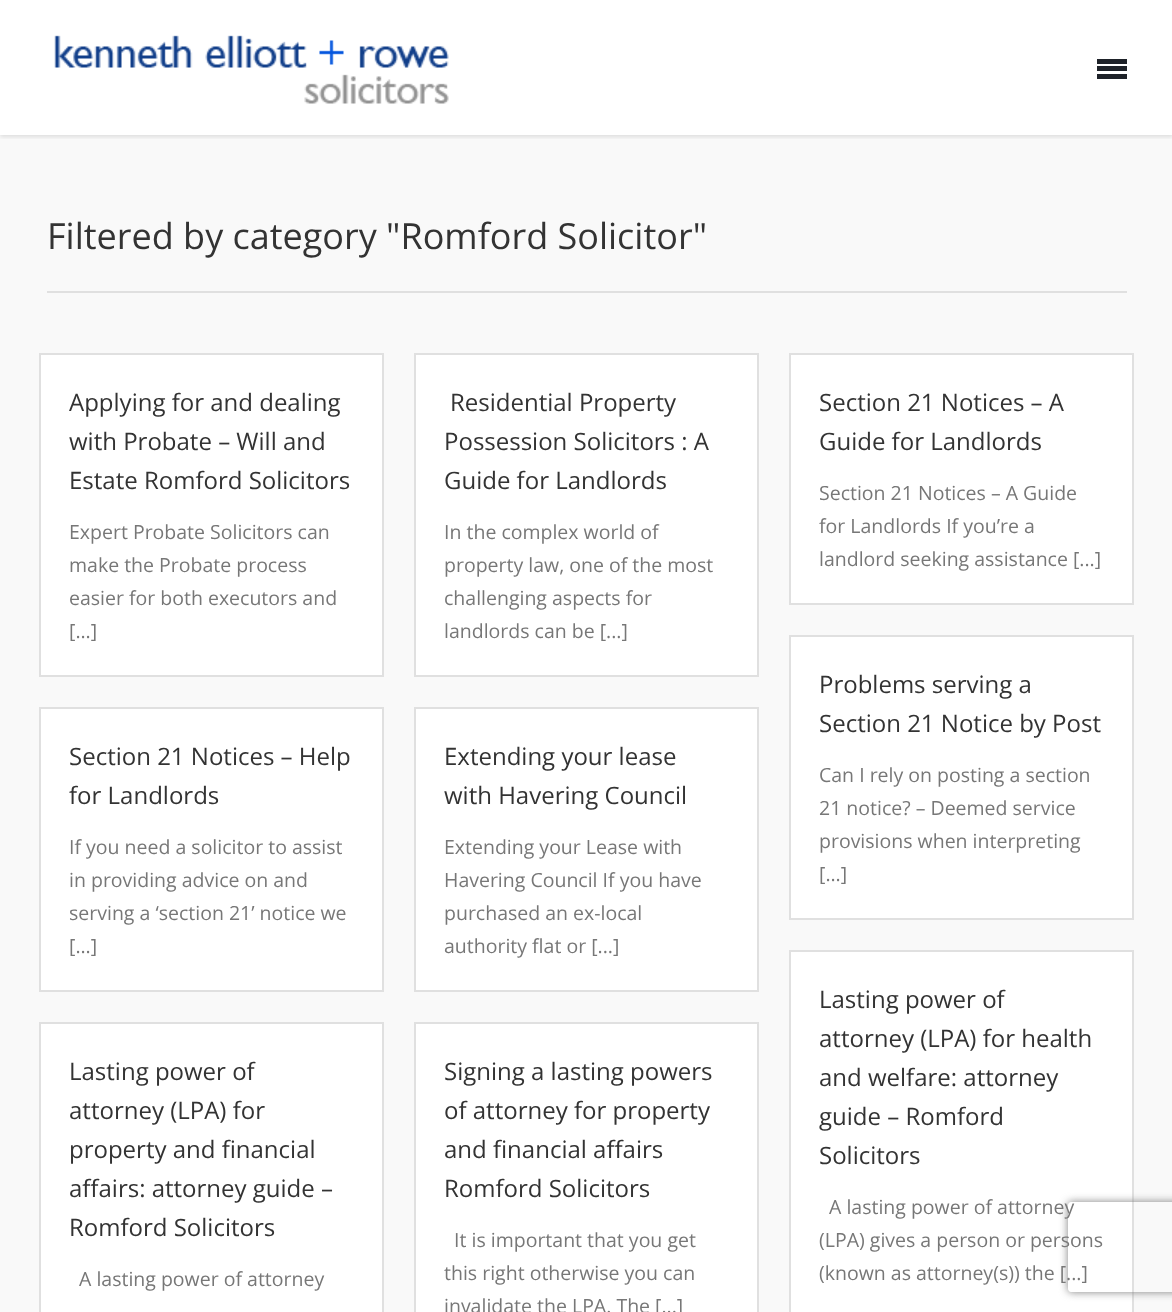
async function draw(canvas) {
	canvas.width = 1172;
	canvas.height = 1312;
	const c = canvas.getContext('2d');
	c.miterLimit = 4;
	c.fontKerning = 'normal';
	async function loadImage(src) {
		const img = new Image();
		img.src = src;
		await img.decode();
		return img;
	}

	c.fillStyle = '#fff';
	c.fillRect(0, 0, 1172, 1312);
	c.fillStyle = '#f9f9f9';
	c.fillRect(0, 135, 1172, 1177);
	c.save();
	c.beginPath();
	c.rect(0, 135, 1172, 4);
	c.clip();
	c.fillStyle = '#0000001c';
	c.filter = 'blur(2px)';
	c.beginPath();
	c.rect(0, 2, 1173, 135);
	c.fill();
	c.filter = 'none';
	c.restore();
	c.drawImage(await loadImage('img1.png'), 54, 35, 395, 69);
	for (const [x, y, w, h, color] of [
		[1097, 59, 30, 5, '#1e2229'],
		[1097, 66, 30, 5, '#1e2229'],
		[1097, 74, 30, 5, '#1e2229'],
		[47, 291, 1080, 2, '#e0e0e0'],
	]) {
		c.fillStyle = color;
		c.fillRect(x, y, w, h);
	}
	c.font = '36px Open Sans';
	c.fillStyle = '#333';
	c.fillText('Filtered by category "Romford Solicitor"', 47, 249);
	c.fillStyle = '#fff';
	c.beginPath();
	c.rect(40, 354, 343, 322);
	c.fill();
	c.strokeStyle = '#e0e0e0';
	c.lineWidth = 2;
	c.stroke();
	c.font = '24px Open Sans';
	c.fillStyle = '#333';
	for (const [text, x, y] of [
		['Applying for and dealing', 69, 411],
		['with Probate – Will and', 69, 450],
		['Estate Romford Solicitors', 69, 489],
	]) {
		c.fillText(text, x, y);
	}
	c.font = '19.5px Open Sans';
	c.fillStyle = '#777';
	for (const [text, x, y] of [
		['Expert Probate Solicitors can', 69, 539],
		['make the Probate process', 69, 572],
		['easier for both executors and', 69, 605],
		['[...]', 69, 638],
	]) {
		c.fillText(text, x, y);
	}
	c.fillStyle = '#fff';
	c.beginPath();
	c.rect(415, 354, 343, 322);
	c.fill();
	c.stroke();
	c.font = '24px Open Sans';
	c.fillStyle = '#333';
	for (const [text, x, y] of [
		['Residential Property', 450, 411],
		['Possession Solicitors : A', 444, 450],
		['Guide for Landlords', 444, 489],
	]) {
		c.fillText(text, x, y);
	}
	c.font = '19.5px Open Sans';
	c.fillStyle = '#777';
	for (const [text, x, y] of [
		['In the complex world of', 444, 539],
		['property law, one of the most', 444, 572],
		['challenging aspects for', 444, 605],
		['landlords can be [...]', 444, 638],
	]) {
		c.fillText(text, x, y);
	}
	c.fillStyle = '#fff';
	c.beginPath();
	c.rect(790, 354, 343, 250);
	c.fill();
	c.stroke();
	c.font = '24px Open Sans';
	c.fillStyle = '#333';
	c.fillText('Section 21 Notices – A', 819, 411);
	c.fillText('Guide for Landlords', 819, 450);
	c.font = '19.5px Open Sans';
	c.fillStyle = '#777';
	for (const [text, x, y] of [
		['Section 21 Notices – A Guide', 819, 500],
		['for Landlords If you’re a', 819, 533],
		['landlord seeking assistance [...]', 819, 566],
	]) {
		c.fillText(text, x, y);
	}
	c.fillStyle = '#fff';
	c.beginPath();
	c.rect(40, 708, 343, 283);
	c.fill();
	c.stroke();
	c.font = '24px Open Sans';
	c.fillStyle = '#333';
	c.fillText('Section 21 Notices – Help', 69, 765);
	c.fillText('for Landlords', 69, 804);
	c.font = '19.5px Open Sans';
	c.fillStyle = '#777';
	for (const [text, x, y] of [
		['If you need a solicitor to assist', 69, 854],
		['in providing advice on and', 69, 887],
		['serving a ‘section 21’ notice we', 69, 920],
		['[...]', 69, 953],
	]) {
		c.fillText(text, x, y);
	}
	c.fillStyle = '#fff';
	c.beginPath();
	c.rect(415, 708, 343, 283);
	c.fill();
	c.stroke();
	c.font = '24px Open Sans';
	c.fillStyle = '#333';
	c.fillText('Extending your lease', 444, 765);
	c.fillText('with Havering Council', 444, 804);
	c.font = '19.5px Open Sans';
	c.fillStyle = '#777';
	for (const [text, x, y] of [
		['Extending your Lease with', 444, 854],
		['Havering Council If you have', 444, 887],
		['purchased an ex-local', 444, 920],
		['authority flat or [...]', 444, 953],
	]) {
		c.fillText(text, x, y);
	}
	c.fillStyle = '#fff';
	c.beginPath();
	c.rect(790, 636, 343, 283);
	c.fill();
	c.stroke();
	c.font = '24px Open Sans';
	c.fillStyle = '#333';
	c.fillText('Problems serving a', 819, 693);
	c.fillText('Section 21 Notice by Post', 819, 732);
	c.font = '19.5px Open Sans';
	c.fillStyle = '#777';
	for (const [text, x, y] of [
		['Can I rely on posting a section', 819, 782],
		['21 notice? – Deemed service', 819, 815],
		['provisions when interpreting', 819, 848],
		['[...]', 819, 881],
	]) {
		c.fillText(text, x, y);
	}
	c.fillStyle = '#fff';
	c.beginPath();
	c.rect(40, 1023, 343, 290);
	c.fill();
	c.stroke();
	c.font = '24px Open Sans';
	c.fillStyle = '#333';
	for (const [text, x, y] of [
		['Lasting power of', 69, 1080],
		['attorney (LPA) for', 69, 1119],
		['property and financial', 69, 1158],
		['affairs: attorney guide –', 69, 1197],
		['Romford Solicitors', 69, 1236],
	]) {
		c.fillText(text, x, y);
	}
	c.font = '19.5px Open Sans';
	c.fillStyle = '#777';
	c.fillText('A lasting power of attorney', 79, 1286);
	c.fillStyle = '#fff';
	c.beginPath();
	c.rect(415, 1023, 343, 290);
	c.fill();
	c.stroke();
	c.font = '24px Open Sans';
	c.fillStyle = '#333';
	for (const [text, x, y] of [
		['Signing a lasting powers', 444, 1080],
		['of attorney for property', 444, 1119],
		['and financial affairs', 444, 1158],
		['Romford Solicitors', 444, 1197],
	]) {
		c.fillText(text, x, y);
	}
	c.font = '19.5px Open Sans';
	c.fillStyle = '#777';
	for (const [text, x, y] of [
		['It is important that you get', 454, 1247],
		['this right otherwise you can', 444, 1280],
		['invalidate the LPA. The [...]', 444, 1313],
	]) {
		c.fillText(text, x, y);
	}
	c.fillStyle = '#fff';
	c.beginPath();
	c.rect(790, 951, 343, 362);
	c.fill();
	c.stroke();
	c.font = '24px Open Sans';
	c.fillStyle = '#333';
	for (const [text, x, y] of [
		['Lasting power of', 819, 1008],
		['attorney (LPA) for health', 819, 1047],
		['and welfare: attorney', 819, 1086],
		['guide – Romford', 819, 1125],
		['Solicitors', 819, 1164],
	]) {
		c.fillText(text, x, y);
	}
	c.font = '19.5px Open Sans';
	c.fillStyle = '#777';
	for (const [text, x, y] of [
		['A lasting power of attorney', 829, 1214],
		['(LPA) gives a person or persons', 819, 1247],
		['(known as attorney(s)) the [...]', 819, 1280],
	]) {
		c.fillText(text, x, y);
	}
	c.save();
	c.beginPath();
	c.moveTo(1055, 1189);
	c.lineTo(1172, 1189);
	c.lineTo(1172, 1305);
	c.lineTo(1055, 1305);
	c.closePath();
	c.moveTo(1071, 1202);
	c.lineTo(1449, 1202);
	c.bezierCurveTo(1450.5, 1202, 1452, 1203.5, 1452, 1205);
	c.lineTo(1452, 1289);
	c.bezierCurveTo(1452, 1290.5, 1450.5, 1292, 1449, 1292);
	c.lineTo(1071, 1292);
	c.bezierCurveTo(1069.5, 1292, 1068, 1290.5, 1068, 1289);
	c.lineTo(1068, 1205);
	c.bezierCurveTo(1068, 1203.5, 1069.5, 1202, 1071, 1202);
	c.closePath();
	c.clip('evenodd');
	c.fillStyle = '#808080';
	c.filter = 'blur(4px)';
	c.beginPath();
	c.roundRect(1068, 1202, 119, 90, 3);
	c.fill();
	c.filter = 'none';
	c.restore();
}

draw(document.querySelector('canvas'));
